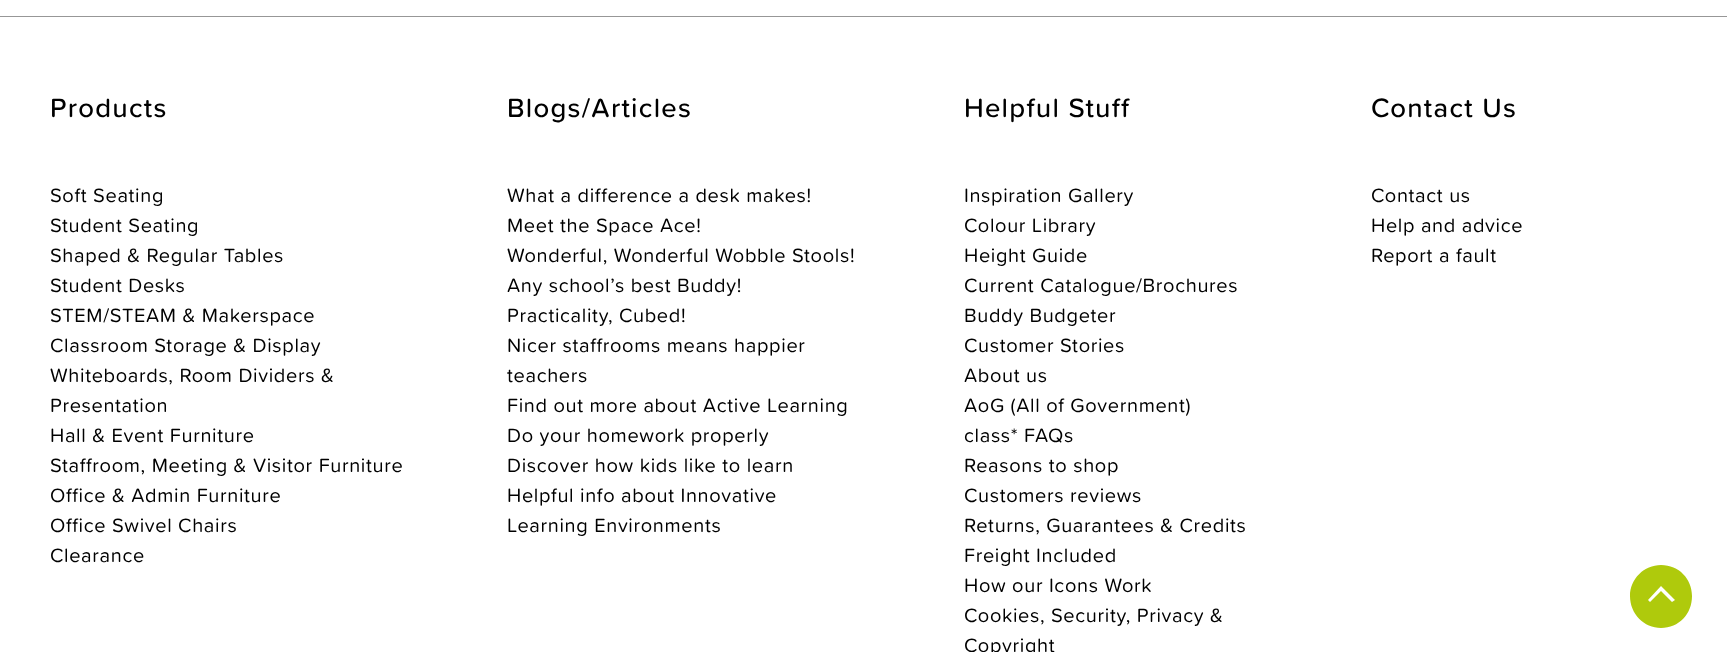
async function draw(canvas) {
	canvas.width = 1727;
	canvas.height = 652;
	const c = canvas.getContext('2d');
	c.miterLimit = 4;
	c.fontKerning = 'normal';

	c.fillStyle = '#fff';
	c.fillRect(0, 0, 1727, 652);
	c.fillStyle = '#979797';
	c.fillRect(0, 16, 1727, 1);
	c.letterSpacing = '1.25px';
	c.font = '500 27.5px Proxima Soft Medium';
	c.fillStyle = '#000';
	c.fillText('Products', 50, 117);
	c.letterSpacing = '0.65px';
	c.font = '20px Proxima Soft';
	for (const [text, x, y] of [
		['Soft Seating', 50, 202],
		['Student Seating', 50, 232],
		['Shaped & Regular Tables', 50, 262],
		['Student Desks', 50, 292],
		['STEM/STEAM & Makerspace', 50, 322],
		['Classroom Storage & Display', 50, 352],
		['Whiteboards, Room Dividers &', 50, 382],
		['Presentation', 50, 412],
		['Hall & Event Furniture', 50, 442],
		['Staffroom, Meeting & Visitor Furniture', 50, 472],
		['Office & Admin Furniture', 50, 502],
		['Office Swivel Chairs', 50, 532],
		['Clearance', 50, 562],
	]) {
		c.fillText(text, x, y);
	}
	c.letterSpacing = '1.25px';
	c.font = '500 27.5px Proxima Soft Medium';
	c.fillText('Blogs/Articles', 507, 117);
	c.letterSpacing = '0.65px';
	c.font = '20px Proxima Soft';
	for (const [text, x, y] of [
		['What a difference a desk makes!', 507, 202],
		['Meet the Space Ace!', 507, 232],
		['Wonderful, Wonderful Wobble Stools!', 507, 262],
		['Any school’s best Buddy!', 507, 292],
		['Practicality, Cubed!', 507, 322],
		['Nicer staffrooms means happier', 507, 352],
		['teachers', 507, 382],
		['Find out more about Active Learning', 507, 412],
		['Do your homework properly', 507, 442],
		['Discover how kids like to learn', 507, 472],
		['Helpful info about Innovative', 507, 502],
		['Learning Environments', 507, 532],
	]) {
		c.fillText(text, x, y);
	}
	c.letterSpacing = '1.25px';
	c.font = '500 27.5px Proxima Soft Medium';
	c.fillText('Helpful Stuff', 964, 117);
	c.letterSpacing = '0.65px';
	c.font = '20px Proxima Soft';
	for (const [text, x, y] of [
		['Inspiration Gallery', 964, 202],
		['Colour Library', 964, 232],
		['Height Guide', 964, 262],
		['Current Catalogue/Brochures', 964, 292],
		['Buddy Budgeter', 964, 322],
		['Customer Stories', 964, 352],
		['About us', 964, 382],
		['AoG (All of Government)', 964, 412],
		['class* FAQs', 964, 442],
		['Reasons to shop', 964, 472],
		['Customers reviews', 964, 502],
		['Returns, Guarantees & Credits', 964, 532],
		['Freight Included', 964, 562],
		['How our Icons Work', 964, 592],
		['Cookies, Security, Privacy &', 964, 622],
		['Copyright', 964, 652],
	]) {
		c.fillText(text, x, y);
	}
	c.letterSpacing = '1.25px';
	c.font = '500 27.5px Proxima Soft Medium';
	c.fillText('Contact Us', 1371, 117);
	c.letterSpacing = '0.65px';
	c.font = '20px Proxima Soft';
	for (const [text, x, y] of [
		['Contact us', 1371, 202],
		['Help and advice', 1371, 232],
		['Report a fault', 1371, 262],
	]) {
		c.fillText(text, x, y);
	}
	c.fillStyle = '#afca0c';
	c.beginPath();
	c.moveTo(1661, 565);
	c.bezierCurveTo(1679, 565, 1692, 579, 1692, 596);
	c.bezierCurveTo(1692, 614, 1679, 628, 1661, 628);
	c.bezierCurveTo(1644, 628, 1630, 614, 1630, 596);
	c.bezierCurveTo(1630, 579, 1644, 565, 1661, 565);
	c.closePath();
	c.moveTo(1648, 600);
	c.lineTo(1650, 602);
	c.lineTo(1661, 591);
	c.lineTo(1672, 602);
	c.lineTo(1675, 600);
	c.lineTo(1661, 586);
	c.closePath();
	c.fill('evenodd');
}

draw(document.querySelector('canvas'));
